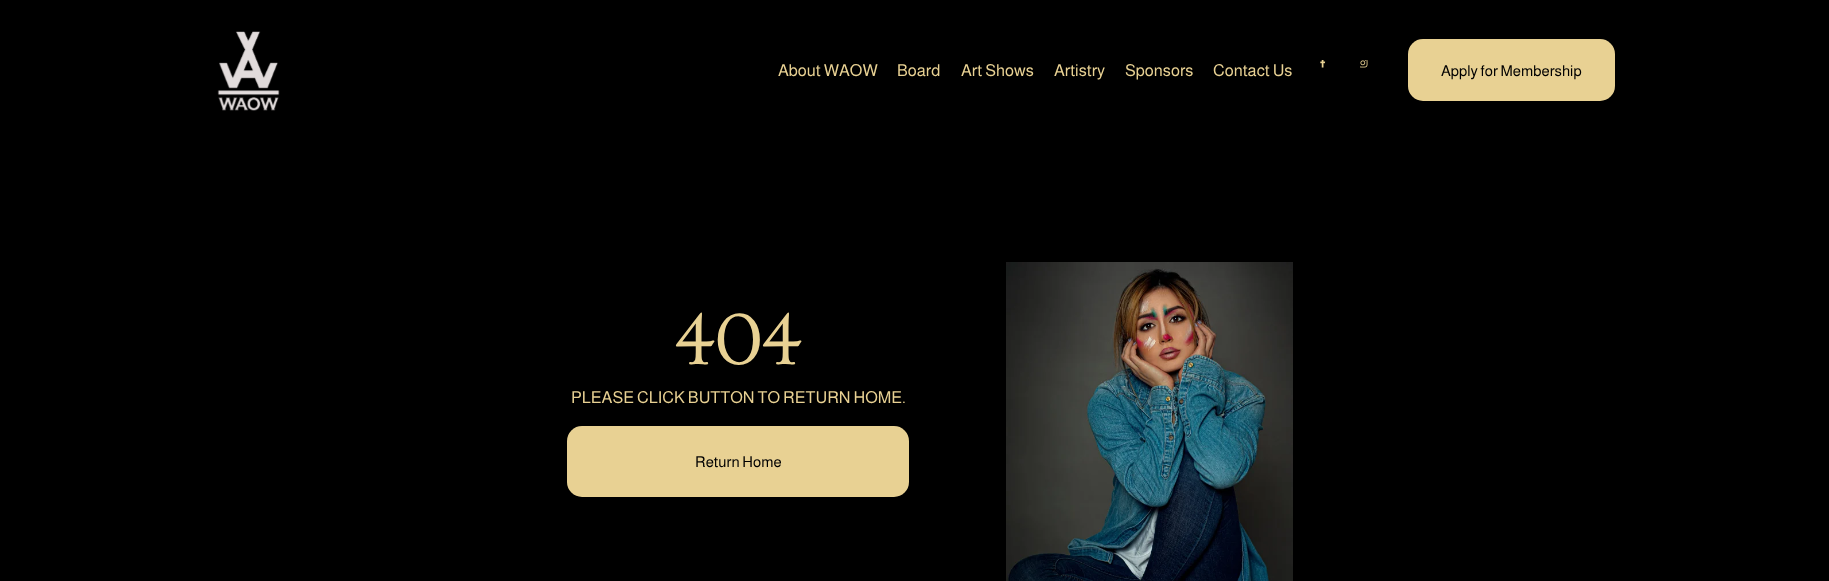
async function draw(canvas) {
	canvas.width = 1829;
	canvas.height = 581;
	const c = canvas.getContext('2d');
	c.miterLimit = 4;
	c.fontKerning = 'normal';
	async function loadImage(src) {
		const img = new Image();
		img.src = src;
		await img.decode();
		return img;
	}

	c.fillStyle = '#000';
	c.fillRect(0, 0, 1829, 581);
	c.drawImage(await loadImage('img1.png'), 217, 31, 63, 80);
	c.font = '16.5px Almarai';
	c.fillStyle = '#e8d193';
	for (const [text, x, y] of [
		['About WAOW', 778, 76],
		['Board', 897, 76],
		['Art Shows', 961, 76],
		['Artistry', 1054, 76],
		['Sponsors', 1125, 76],
		['Contact Us', 1213, 76],
	]) {
		c.fillText(text, x, y);
	}
	c.drawImage(await loadImage('img2.png'), 1320, 60, 6, 8);
	c.drawImage(await loadImage('img3.png'), 1360, 60, 8, 8);
	c.beginPath();
	c.roundRect(1408, 39, 207, 62, 15);
	c.fill();
	c.font = '15px Almarai';
	c.fillStyle = '#000';
	c.fillText('Apply for Membership', 1441, 76);
	c.letterSpacing = '-1.5px';
	c.font = '76px Ovo';
	c.fillStyle = '#e8d193';
	c.fillText('404', 674, 364);
	c.drawImage(await loadImage('img4.png'), 1006, 262, 287, 319);
	c.letterSpacing = '0px';
	c.font = '16.5px Almarai';
	c.fillText('PLEASE CLICK BUTTON TO RETURN HOME.', 571, 403);
	c.beginPath();
	c.roundRect(567, 426, 342, 71, 15);
	c.fill();
	c.font = '15px Almarai';
	c.fillStyle = '#000';
	c.fillText('Return Home', 695, 467);
}

draw(document.querySelector('canvas'));
